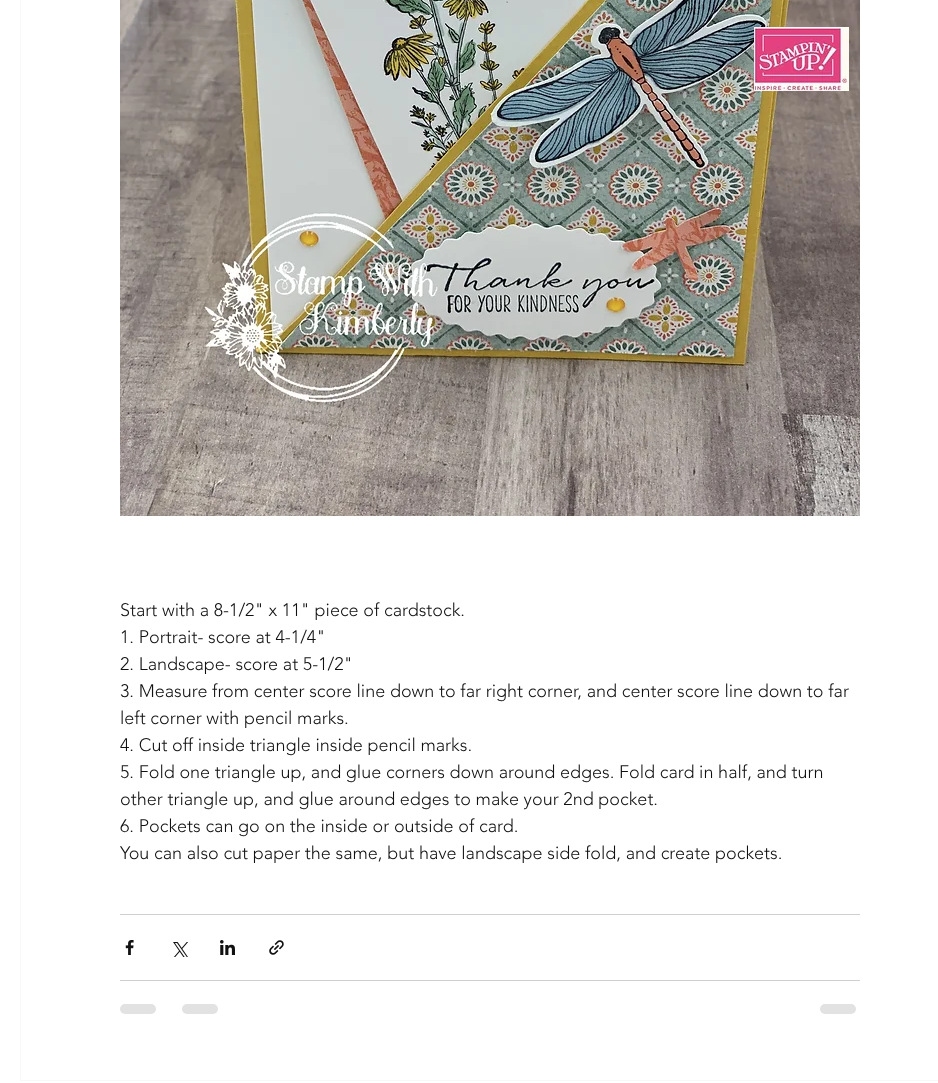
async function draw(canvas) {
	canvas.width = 938;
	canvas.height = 1083;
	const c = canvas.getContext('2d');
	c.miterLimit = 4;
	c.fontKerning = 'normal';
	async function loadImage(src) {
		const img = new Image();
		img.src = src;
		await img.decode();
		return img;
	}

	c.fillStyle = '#fff';
	c.fillRect(0, 0, 938, 1083);
	c.strokeStyle = '#f8f8fc';
	c.strokeRect(20.5, -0.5, 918, 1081);
	c.drawImage(await loadImage('img2.png'), 120, 0, 740, 516);
	c.drawImage(await loadImage('img1.png'), 754, 27, 95, 64);
	c.font = '300 18px "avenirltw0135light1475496"';
	c.fillStyle = '#111';
	for (const [text, x, y] of [
		['Start with a 8-1/2" x 11" piece of cardstock.', 120, 616],
		['1. Portrait- score at 4-1/4"', 120, 643],
		['2. Landscape- score at 5-1/2"', 120, 670],
		['3. Measure from center score line down to far right corner, and center score line down to far', 120, 697],
		['left corner with pencil marks.', 120, 724],
		['4. Cut off inside triangle inside pencil marks.', 120, 751],
		['5. Fold one triangle up, and glue corners down around edges. Fold card in half, and turn', 120, 778],
		['other triangle up, and glue around edges to make your 2nd pocket.', 120, 805],
		['6. Pockets can go on the inside or outside of card.', 120, 832],
		['You can also cut paper the same, but have landscape side fold, and create pockets.', 120, 859],
	]) {
		c.fillText(text, x, y);
	}
	c.fillStyle = '#cfcfcf';
	c.fillRect(120, 914, 740, 1);
	c.drawImage(await loadImage('img3.png'), 125, 940, 9, 15);
	c.drawImage(await loadImage('img4.png'), 173, 942, 15, 15);
	c.drawImage(await loadImage('img5.png'), 220, 940, 15, 15);
	c.drawImage(await loadImage('img6.png'), 269, 940, 15, 15);
	c.fillRect(120, 980, 740, 1);
	c.fillStyle = '#e2e2e2';
	c.beginPath();
	c.roundRect(120, 1004, 36, 10, 5);
	c.fill();
	c.beginPath();
	c.roundRect(182, 1004, 36, 10, 5);
	c.fill();
	c.beginPath();
	c.roundRect(820, 1004, 36, 10, 5);
	c.fill();
}

draw(document.querySelector('canvas'));
